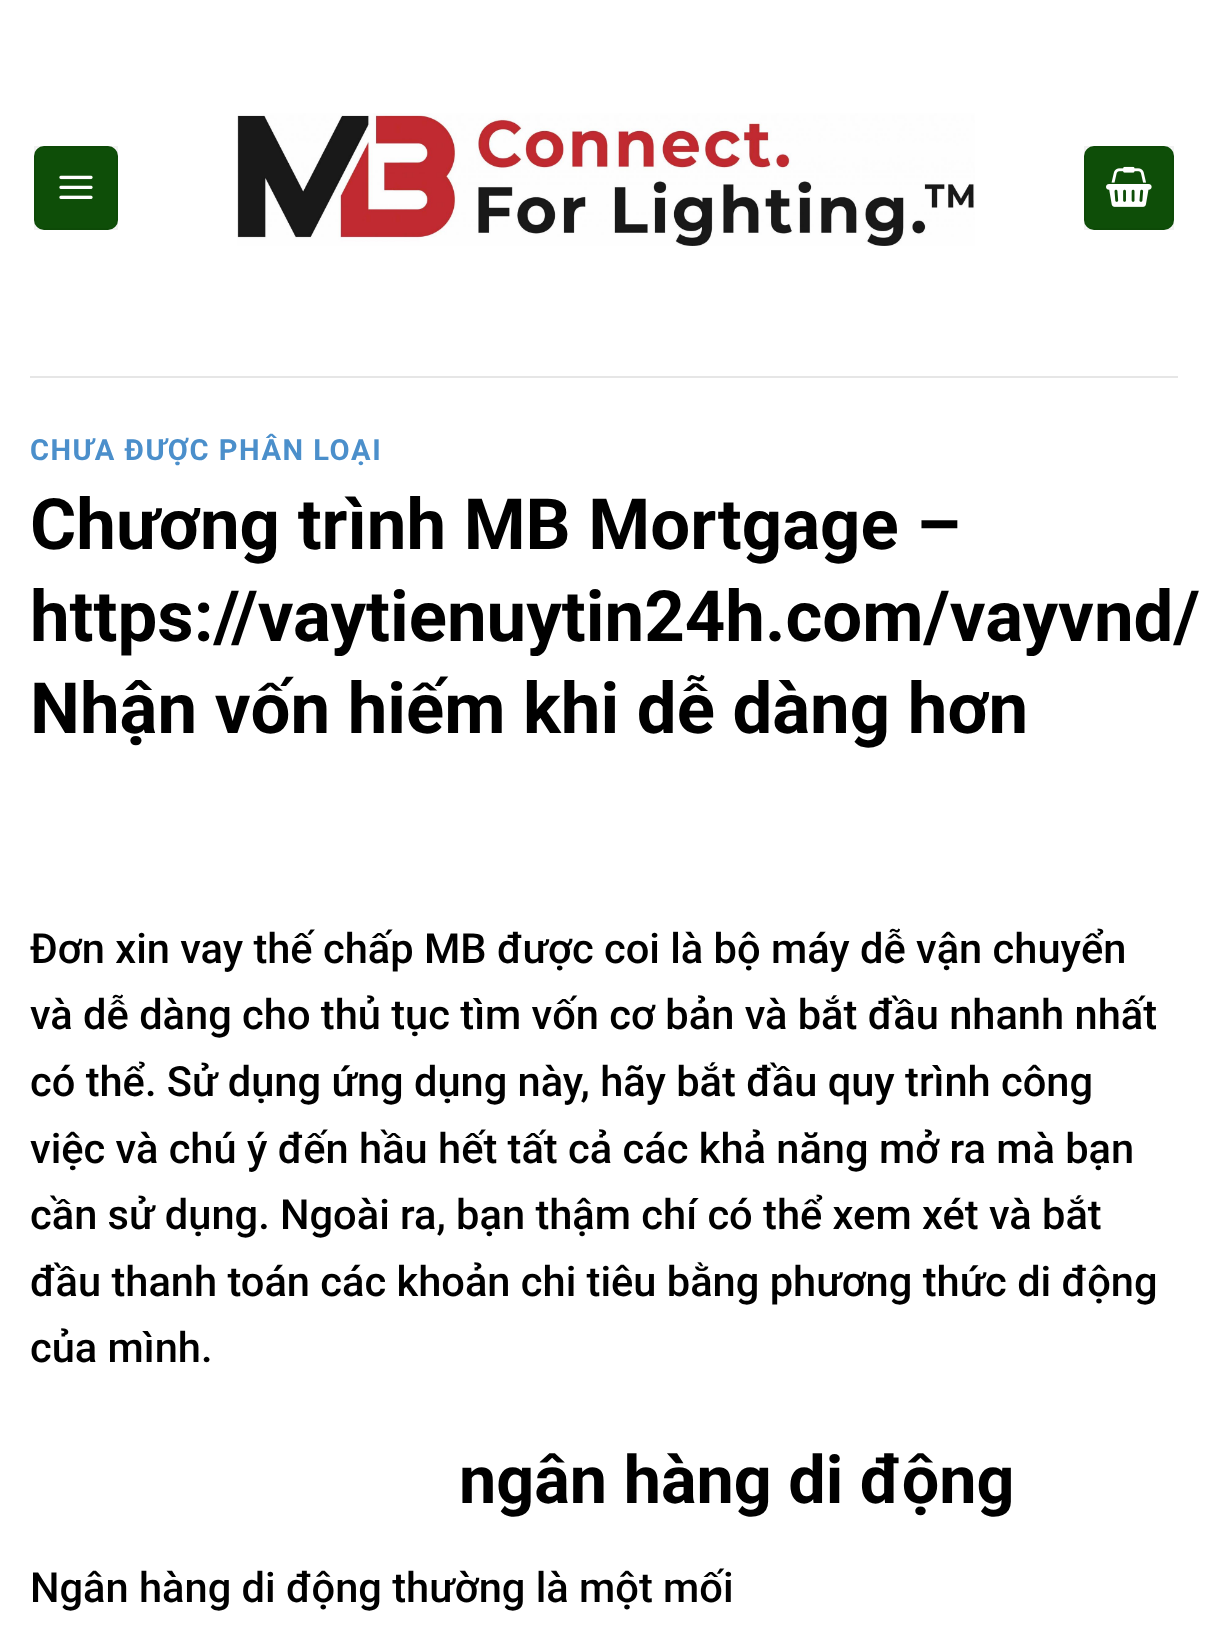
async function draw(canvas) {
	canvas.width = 1207;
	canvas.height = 1641;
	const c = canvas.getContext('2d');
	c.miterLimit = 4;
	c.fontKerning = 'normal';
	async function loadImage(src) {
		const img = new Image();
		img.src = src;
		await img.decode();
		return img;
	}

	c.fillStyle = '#fff';
	c.fillRect(0, 0, 1207, 1641);
	c.fillStyle = '#0e4e08';
	c.beginPath();
	c.roundRect(34, 146, 84, 84, 10);
	c.fill();
	c.strokeStyle = '#0000000d';
	c.lineWidth = 2;
	c.strokeRect(35, 147, 82, 82);
	c.drawImage(await loadImage('img1.png'), 59, 175, 34, 24);
	c.drawImage(await loadImage('img2.png'), 237, 113, 738, 133);
	c.beginPath();
	c.roundRect(1084, 146, 90, 84, 10);
	c.fill();
	c.strokeRect(1085, 147, 88, 82);
	c.drawImage(await loadImage('img3.png'), 1106, 166, 46, 41);
	c.fillStyle = '#e6e6e6';
	c.fillRect(30, 376, 1148, 2);
	c.letterSpacing = '1.5px';
	c.font = 'bold 29.1px Roboto';
	c.fillStyle = '#4b8fcb';
	c.fillText('CHƯA ĐƯỢC PHÂN LOẠI', 30, 460);
	c.letterSpacing = '0px';
	c.font = 'bold 70.75px Roboto';
	c.fillStyle = '#000';
	for (const [text, x, y] of [
		['Chương trình MB Mortgage –', 30, 549],
		['https://vaytienuytin24h.com/vayvnd/', 30, 641],
		['Nhận vốn hiếm khi dễ dàng hơn', 30, 733],
	]) {
		c.fillText(text, x, y);
	}
	c.font = '500 41.6px Roboto';
	for (const [text, x, y] of [
		['Đơn xin vay thế chấp MB được coi là bộ máy dễ vận chuyển', 30, 963],
		['và dễ dàng cho thủ tục tìm vốn cơ bản và bắt đầu nhanh nhất', 30, 1029],
		['có thể. Sử dụng ứng dụng này, hãy bắt đầu quy trình công', 30, 1096],
		['việc và chú ý đến hầu hết tất cả các khả năng mở ra mà bạn', 30, 1163],
		['cần sử dụng. Ngoài ra, bạn thậm chí có thể xem xét và bắt', 30, 1229],
		['đầu thanh toán các khoản chi tiêu bằng phương thức di động', 30, 1296],
		['của mình.', 30, 1362],
	]) {
		c.fillText(text, x, y);
	}
	c.font = 'bold 66.5px Roboto';
	c.fillText('ngân hàng di động', 459, 1503);
	c.font = '500 41.6px Roboto';
	c.fillText('Ngân hàng di động thường là một mối', 30, 1602);
}

draw(document.querySelector('canvas'));
